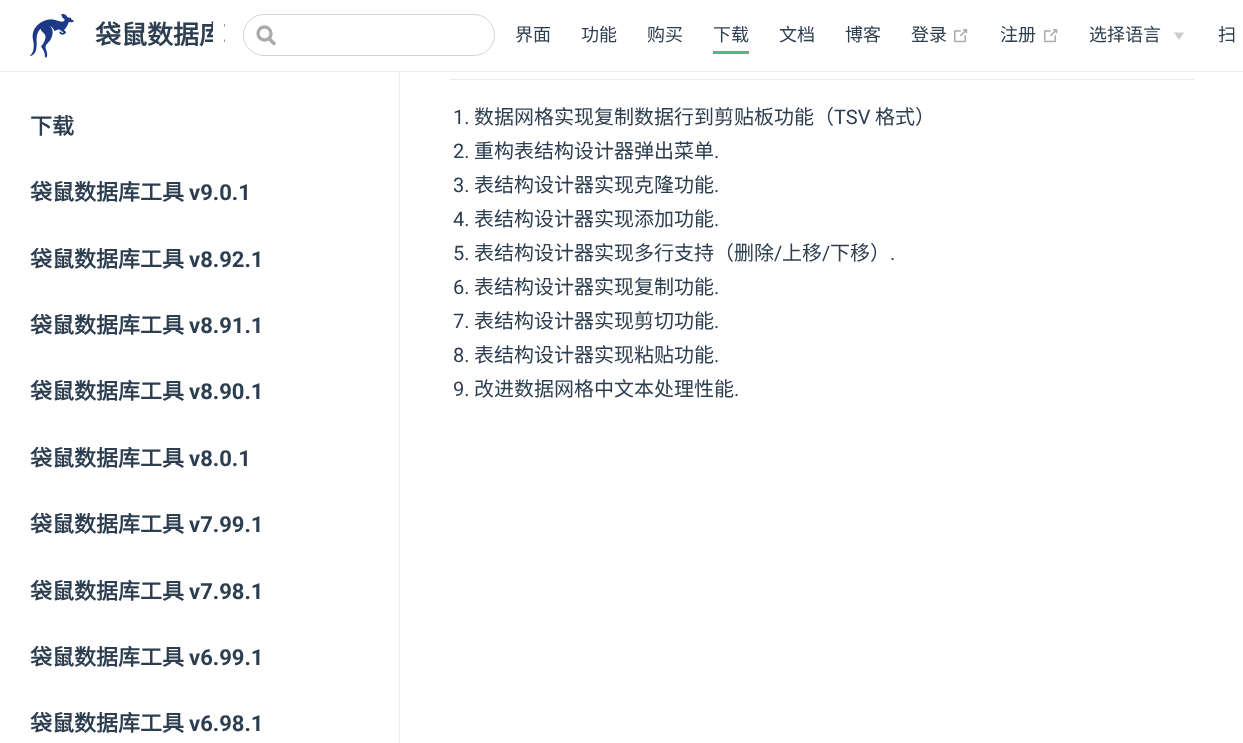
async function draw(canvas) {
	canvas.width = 1243;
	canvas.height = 743;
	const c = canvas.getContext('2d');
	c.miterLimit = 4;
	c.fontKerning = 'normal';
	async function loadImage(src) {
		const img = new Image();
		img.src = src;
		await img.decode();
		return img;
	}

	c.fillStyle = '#fff';
	c.fillRect(0, 0, 1243, 743);
	c.fillStyle = '#eaecef';
	c.fillRect(0, 71, 1243, 1);
	c.drawImage(await loadImage('img1.png'), 30, 14, 44, 44);
	c.font = 'bold 26px Noto Sans CJK SC';
	c.fillStyle = '#2c3e50';
	c.fillText('袋鼠数据库', 95, 44);
	c.fillStyle = '#fff';
	c.fillRect(213, 22, 11, 25);
	c.beginPath();
	c.moveTo(275, 44.5);
	c.lineTo(268.5, 38);
	c.strokeStyle = '#aaa';
	c.lineWidth = 3.3;
	c.stroke();
	c.beginPath();
	c.arc(264.5, 33.5, 6.5, 0, 2 * Math.PI);
	c.stroke();
	c.beginPath();
	c.roundRect(243.5, 14.5, 251, 41, 20.5);
	c.strokeStyle = '#cfd4db';
	c.lineWidth = 1;
	c.stroke();
	c.font = '18px Noto Sans CJK SC';
	c.fillStyle = '#2c3e50';
	for (const [text, x, y] of [
		['界面', 515, 41],
		['功能', 581, 41],
		['购买', 647, 41],
	]) {
		c.fillText(text, x, y);
	}
	c.fillStyle = '#46bd87';
	c.fillRect(713, 51, 36, 3);
	c.fillStyle = '#2c3e50';
	for (const [text, x, y] of [
		['下载', 713, 41],
		['文档', 779, 41],
		['博客', 845, 41],
		['登录', 911, 41],
	]) {
		c.fillText(text, x, y);
	}
	c.drawImage(await loadImage('img2.png'), 954, 29, 14, 14);
	c.fillText('注册', 1000, 41);
	c.drawImage(await loadImage('img2.png'), 1044, 29, 14, 14);
	c.fillText('选择语言', 1089, 41);
	c.fillStyle = '#ccc';
	c.beginPath();
	c.moveTo(1174, 32.5);
	c.lineTo(1184, 32.5);
	c.lineTo(1179, 40);
	c.closePath();
	c.fill();
	c.fillStyle = '#2c3e50';
	c.fillText('扫', 1218, 41);
	c.fillStyle = '#eaecef';
	c.fillRect(399, 73, 1, 670);
	c.font = 'bold 22px Noto Sans CJK SC';
	c.fillStyle = '#2c3e50';
	c.fillText('下载', 30, 134);
	c.fillText('袋鼠数据库工具', 30, 200);
	c.font = 'bold 22px Roboto';
	c.fillText('v9.0.1', 189, 200);
	c.font = 'bold 22px Noto Sans CJK SC';
	c.fillText('袋鼠数据库工具', 30, 267);
	c.font = 'bold 22px Roboto';
	c.fillText('v8.92.1', 189, 267);
	c.font = 'bold 22px Noto Sans CJK SC';
	c.fillText('袋鼠数据库工具', 30, 333);
	c.font = 'bold 22px Roboto';
	c.fillText('v8.91.1', 189, 333);
	c.font = 'bold 22px Noto Sans CJK SC';
	c.fillText('袋鼠数据库工具', 30, 399);
	c.font = 'bold 22px Roboto';
	c.fillText('v8.90.1', 189, 399);
	c.font = 'bold 22px Noto Sans CJK SC';
	c.fillText('袋鼠数据库工具', 30, 466);
	c.font = 'bold 22px Roboto';
	c.fillText('v8.0.1', 189, 466);
	c.font = 'bold 22px Noto Sans CJK SC';
	c.fillText('袋鼠数据库工具', 30, 532);
	c.font = 'bold 22px Roboto';
	c.fillText('v7.99.1', 189, 532);
	c.font = 'bold 22px Noto Sans CJK SC';
	c.fillText('袋鼠数据库工具', 30, 599);
	c.font = 'bold 22px Roboto';
	c.fillText('v7.98.1', 189, 599);
	c.font = 'bold 22px Noto Sans CJK SC';
	c.fillText('袋鼠数据库工具', 30, 665);
	c.font = 'bold 22px Roboto';
	c.fillText('v6.99.1', 189, 665);
	c.font = 'bold 22px Noto Sans CJK SC';
	c.fillText('袋鼠数据库工具', 30, 731);
	c.font = 'bold 22px Roboto';
	c.fillText('v6.98.1', 189, 731);
	c.fillStyle = '#eaecef';
	c.fillRect(450, 79, 744, 1);
	c.font = '20px Roboto';
	c.fillStyle = '#2c3e50';
	c.fillText('1.', 453, 124);
	c.font = '20px Noto Sans CJK SC';
	c.fillText('数据网格实现复制数据行到剪贴板功能（', 474, 124);
	c.font = '20px Roboto';
	c.fillText('TSV', 834, 124);
	c.font = '20px Noto Sans CJK SC';
	c.fillText('格式）', 875, 124);
	c.font = '20px Roboto';
	c.fillText('2.', 453, 158);
	c.font = '20px Noto Sans CJK SC';
	c.fillText('重构表结构设计器弹出菜单', 474, 158);
	c.font = '20px Roboto';
	c.fillText('.', 714, 158);
	c.fillText('3.', 453, 192);
	c.font = '20px Noto Sans CJK SC';
	c.fillText('表结构设计器实现克隆功能', 474, 192);
	c.font = '20px Roboto';
	c.fillText('.', 714, 192);
	c.fillText('4.', 453, 226);
	c.font = '20px Noto Sans CJK SC';
	c.fillText('表结构设计器实现添加功能', 474, 226);
	c.font = '20px Roboto';
	c.fillText('.', 714, 226);
	c.fillText('5.', 453, 260);
	c.font = '20px Noto Sans CJK SC';
	c.fillText('表结构设计器实现多行支持（删除', 474, 260);
	c.font = '20px Roboto';
	c.fillText('/', 774, 260);
	c.font = '20px Noto Sans CJK SC';
	c.fillText('上移', 782, 260);
	c.font = '20px Roboto';
	c.fillText('/', 822, 260);
	c.font = '20px Noto Sans CJK SC';
	c.fillText('下移）', 830, 260);
	c.font = '20px Roboto';
	c.fillText('.', 890, 260);
	c.fillText('6.', 453, 294);
	c.font = '20px Noto Sans CJK SC';
	c.fillText('表结构设计器实现复制功能', 474, 294);
	c.font = '20px Roboto';
	c.fillText('.', 714, 294);
	c.fillText('7.', 453, 328);
	c.font = '20px Noto Sans CJK SC';
	c.fillText('表结构设计器实现剪切功能', 474, 328);
	c.font = '20px Roboto';
	c.fillText('.', 714, 328);
	c.fillText('8.', 453, 362);
	c.font = '20px Noto Sans CJK SC';
	c.fillText('表结构设计器实现粘贴功能', 474, 362);
	c.font = '20px Roboto';
	c.fillText('.', 714, 362);
	c.fillText('9.', 453, 396);
	c.font = '20px Noto Sans CJK SC';
	c.fillText('改进数据网格中文本处理性能', 474, 396);
	c.font = '20px Roboto';
	c.fillText('.', 734, 396);
}

draw(document.querySelector('canvas'));
